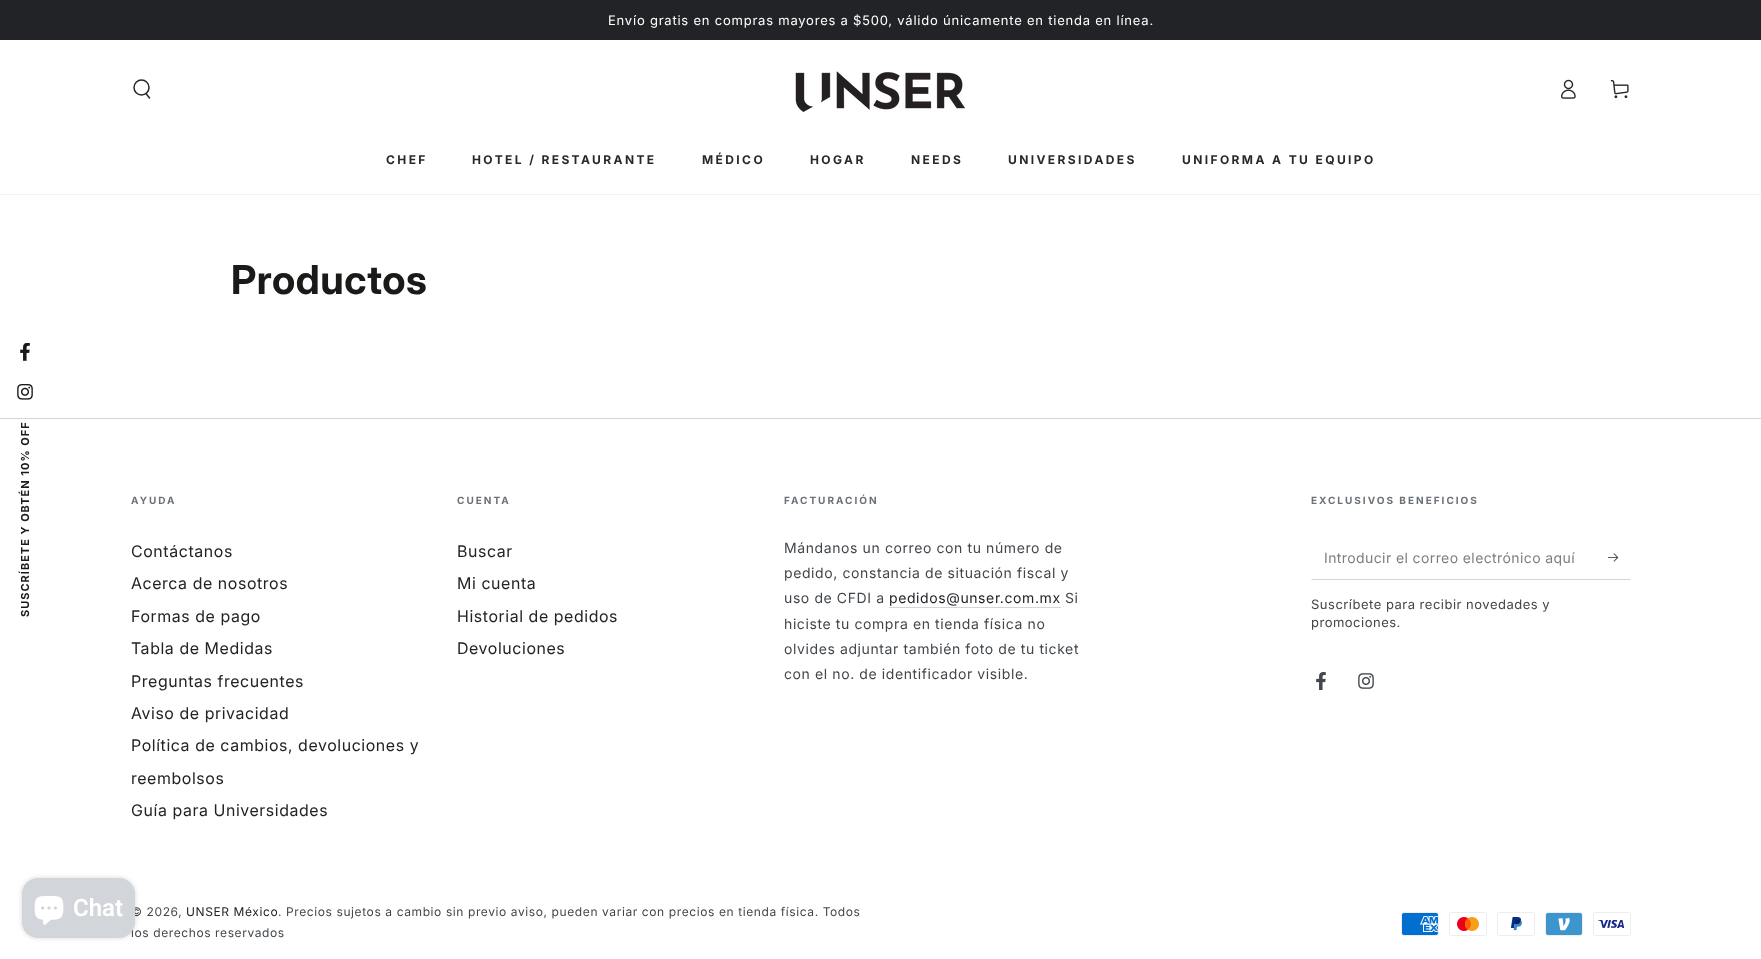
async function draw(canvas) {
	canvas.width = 1761;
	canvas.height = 959;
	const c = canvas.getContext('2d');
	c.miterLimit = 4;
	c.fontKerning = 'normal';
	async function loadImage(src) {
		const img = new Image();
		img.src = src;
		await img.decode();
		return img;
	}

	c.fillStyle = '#fff';
	c.fillRect(0, 0, 1761, 959);
	c.drawImage(await loadImage('img1.png'), 20, 343, 10, 18);
	c.drawImage(await loadImage('img2.png'), 17, 384, 16, 16);
	c.letterSpacing = '1px';
	c.font = 'bold 11px "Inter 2"';
	c.fillStyle = '#1a1b18';
	c.save();
	c.translate(29, 617);
	c.rotate(-90 * Math.PI / 180);
	c.fillText('SUSCRÍBETE Y OBTÉN 10% OFF', 0, 0);
	c.restore();
	c.fillStyle = '#212326';
	c.fillRect(0, 0, 1761, 40);
	c.letterSpacing = '0.78px';
	c.font = '13px Inter';
	c.fillStyle = '#fff';
	c.fillText('Envío gratis en compras mayores a $500, válido únicamente en tienda en línea.', 608, 25);
	c.fillStyle = '#f2f2f4';
	c.fillRect(0, 194, 1761, 1);
	c.beginPath();
	c.arc(141.5, 87.5, 7.5, 0, 2 * Math.PI);
	c.strokeStyle = '#282828';
	c.lineWidth = 1.5;
	c.stroke();
	c.beginPath();
	c.moveTo(146, 93.5);
	c.lineTo(149.5, 98);
	c.lineCap = 'round';
	c.stroke();
	c.drawImage(await loadImage('img3.png'), 795, 71, 170, 41);
	c.drawImage(await loadImage('img4.png'), 1561, 79, 15, 20);
	c.drawImage(await loadImage('img5.png'), 1610, 79, 19, 20);
	c.letterSpacing = '2.4px';
	c.font = 'bold 12px "Inter 2"';
	c.fillStyle = '#282828';
	for (const [text, x, y] of [
		['CHEF', 386, 164],
		['HOTEL / RESTAURANTE', 472, 164],
		['MÉDICO', 702, 164],
		['HOGAR', 810, 164],
		['NEEDS', 911, 164],
		['UNIVERSIDADES', 1008, 164],
		['UNIFORMA A TU EQUIPO', 1182, 164],
	]) {
		c.fillText(text, x, y);
	}
	c.letterSpacing = '0.6px';
	c.font = 'bold 40px Inter';
	c.fillStyle = '#1a1b18';
	c.fillText('Productos', 231, 294);
	c.fillStyle = '#d2d5d9';
	c.fillRect(0, 418, 1761, 1);
	c.letterSpacing = '2px';
	c.font = 'bold 10px "Inter 2"';
	c.fillStyle = '#6b7177';
	c.fillText('AYUDA', 131, 504);
	c.letterSpacing = '0.6px';
	c.font = '16px "Inter 2"';
	c.fillStyle = '#212326';
	for (const [text, x, y] of [
		['Contáctanos', 131, 557],
		['Acerca de nosotros', 131, 589],
		['Formas de pago', 131, 622],
		['Tabla de Medidas', 131, 654],
		['Preguntas frecuentes', 131, 687],
		['Aviso de privacidad', 131, 719],
		['Política de cambios, devoluciones y', 131, 751],
		['reembolsos', 131, 784],
		['Guía para Universidades', 131, 816],
	]) {
		c.fillText(text, x, y);
	}
	c.letterSpacing = '2px';
	c.font = 'bold 10px "Inter 2"';
	c.fillStyle = '#6b7177';
	c.fillText('CUENTA', 457, 504);
	c.letterSpacing = '0.6px';
	c.font = '16px "Inter 2"';
	c.fillStyle = '#212326';
	for (const [text, x, y] of [
		['Buscar', 457, 557],
		['Mi cuenta', 457, 589],
		['Historial de pedidos', 457, 622],
		['Devoluciones', 457, 654],
	]) {
		c.fillText(text, x, y);
	}
	c.letterSpacing = '2px';
	c.font = 'bold 10px "Inter 2"';
	c.fillStyle = '#6b7177';
	c.fillText('FACTURACIÓN', 784, 504);
	c.letterSpacing = '0.6px';
	c.font = '14px Inter';
	c.fillStyle = '#42474c';
	for (const [text, x, y] of [
		['Mándanos un correo con tu número de', 784, 553],
		['pedido, constancia de situación fiscal y', 784, 578],
		['uso de CFDI a', 784, 603],
	]) {
		c.fillText(text, x, y);
	}
	c.fillStyle = '#212326';
	c.fillText('pedidos@unser.com.mx', 889, 603);
	c.fillStyle = '#d2d5d9';
	c.fillRect(889, 607, 172, 1);
	c.fillStyle = '#42474c';
	for (const [text, x, y] of [
		['Si', 1065, 603],
		['hiciste tu compra en tienda física no', 784, 629],
		['olvides adjuntar también foto de tu ticket', 784, 654],
		['con el no. de identificador visible.', 784, 679],
	]) {
		c.fillText(text, x, y);
	}
	c.letterSpacing = '2px';
	c.font = 'bold 10px "Inter 2"';
	c.fillStyle = '#6b7177';
	c.fillText('EXCLUSIVOS BENEFICIOS', 1311, 504);
	c.fillStyle = '#d2d5d9';
	c.beginPath();
	c.moveTo(1631, 580);
	c.lineTo(1311, 580);
	c.lineTo(1312, 579);
	c.lineTo(1630, 579);
	c.closePath();
	c.fill();
	c.letterSpacing = '0.4px';
	c.font = '14px Inter';
	c.fillStyle = '#7b7e82';
	c.fillText('Introducir el correo electrónico aquí', 1324, 563);
	c.drawImage(await loadImage('img6.png'), 1608, 553, 11, 9);
	c.letterSpacing = '0.5px';
	c.font = '13px Inter';
	c.fillStyle = '#42474c';
	c.fillText('Suscríbete para recibir novedades y', 1311, 609);
	c.fillText('promociones.', 1311, 627);
	c.drawImage(await loadImage('img7.png'), 1316, 672, 10, 18);
	c.drawImage(await loadImage('img8.png'), 1358, 673, 16, 16);
	c.letterSpacing = '0.6px';
	c.font = '12px Inter';
	c.fillText('© 2026,', 131, 916);
	c.fillStyle = '#212326';
	c.fillText('UNSER México', 186, 916);
	c.fillStyle = '#42474c';
	c.fillText('. Precios sujetos a cambio sin previo aviso, pueden variar con precios en tienda física. Todos', 278, 916);
	c.fillText('los derechos reservados', 131, 937);
	c.drawImage(await loadImage('img9.png'), 1401, 912, 38, 24);
	c.drawImage(await loadImage('img10.png'), 1449, 912, 38, 24);
	c.drawImage(await loadImage('img11.png'), 1497, 912, 38, 24);
	c.drawImage(await loadImage('img12.png'), 1545, 912, 38, 24);
	c.drawImage(await loadImage('img13.png'), 1593, 912, 38, 24);
	c.fillStyle = '#00000026';
	c.filter = 'blur(2.5px)';
	c.beginPath();
	c.roundRect(22, 878, 113, 60, 16);
	c.fill();
	c.filter = 'none';
	c.fillStyle = '#d2d5d9';
	c.beginPath();
	c.roundRect(22, 878, 113, 60, 16);
	c.fill();
	c.drawImage(await loadImage('img14.png'), 34, 896, 30, 29);
	c.letterSpacing = '0px';
	c.font = '600 24px Roboto';
	c.fillStyle = '#fff';
	c.fillText('Chat', 73, 916);
}

draw(document.querySelector('canvas'));
